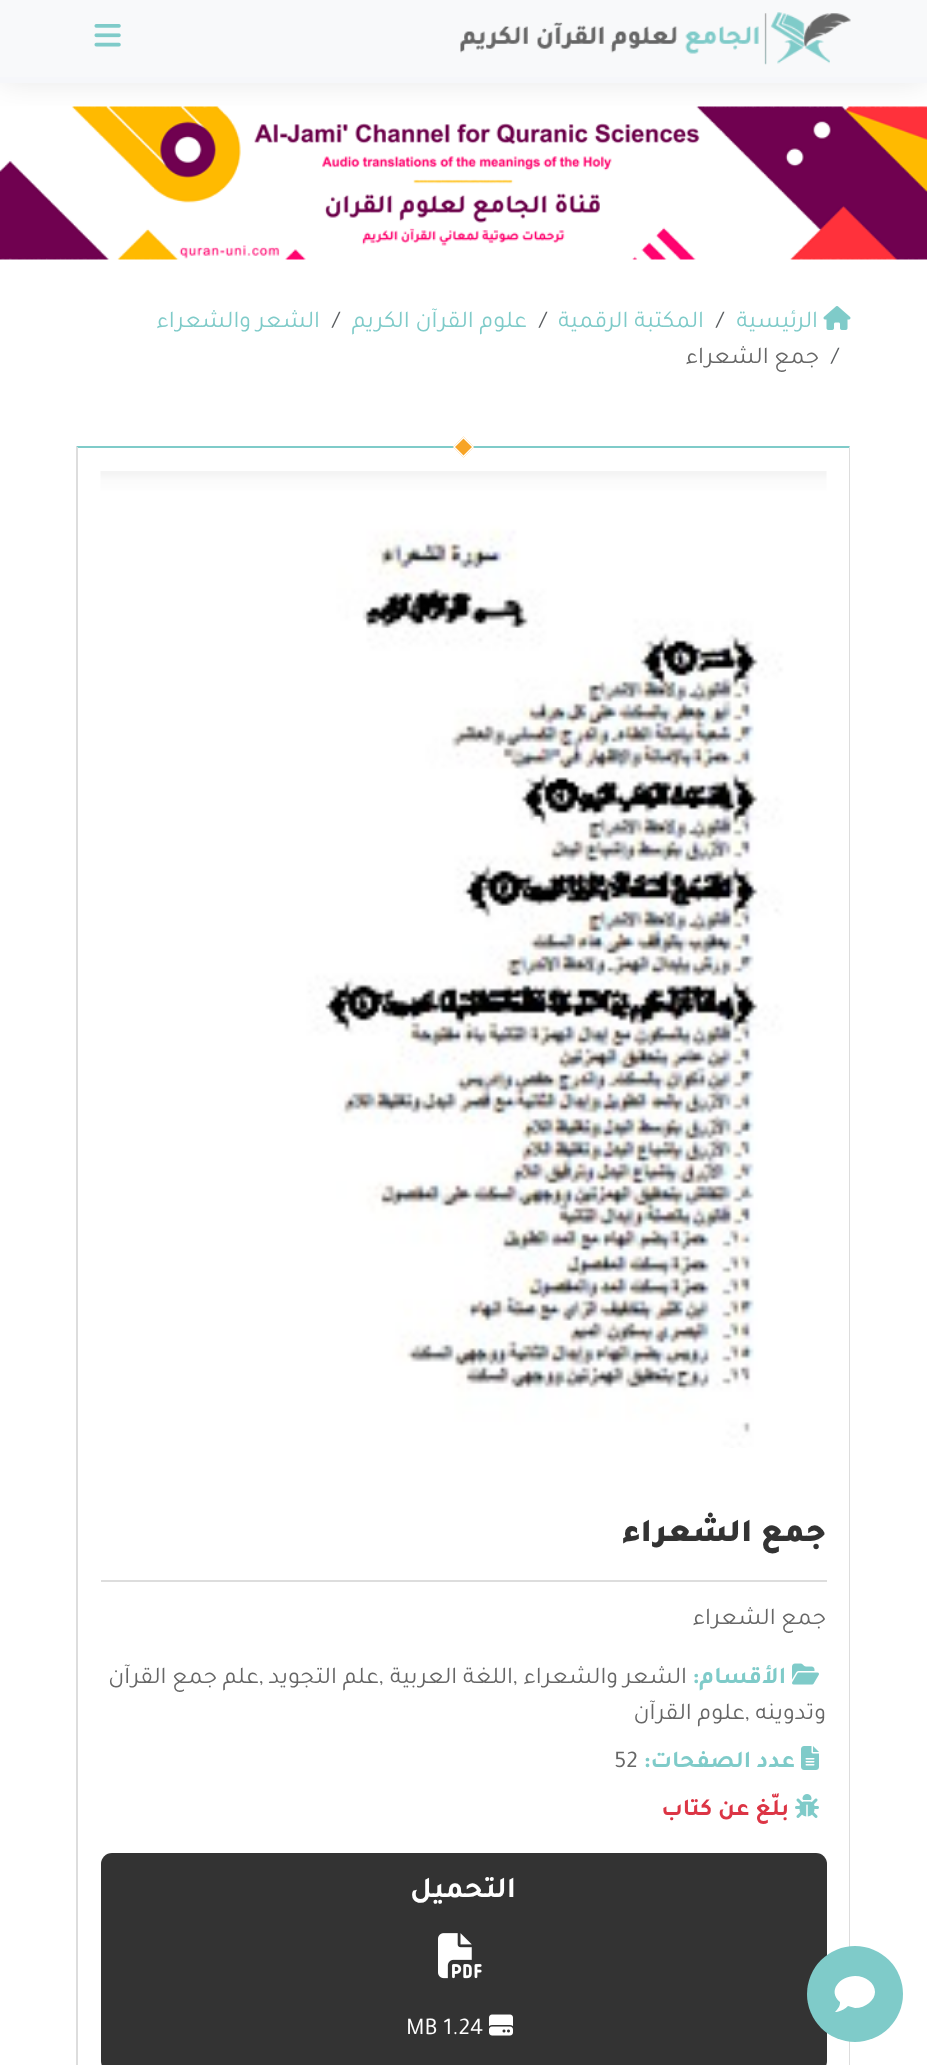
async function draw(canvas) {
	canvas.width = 927;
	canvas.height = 2065;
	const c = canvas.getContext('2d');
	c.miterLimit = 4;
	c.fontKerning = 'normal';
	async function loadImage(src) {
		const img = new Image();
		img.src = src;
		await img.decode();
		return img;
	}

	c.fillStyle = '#fff';
	c.fillRect(0, 0, 927, 2065);
	c.fillStyle = '#00000017';
	c.filter = 'blur(15px)';
	c.beginPath();
	c.rect(0, 0, 927, 83);
	c.fill();
	c.filter = 'none';
	c.fillStyle = '#f8f9fa';
	c.fillRect(0, 0, 927, 77);
	c.fillStyle = '#f6f7fa';
	c.fillRect(0, 77, 927, 6);
	c.drawImage(await loadImage('img1.png'), 460, 12, 391, 53);
	c.drawImage(await loadImage('img2.png'), 94, 24, 27, 23);
	c.drawImage(await loadImage('img3.png'), 0, 106, 927, 154);
	c.drawImage(await loadImage('img4.png'), 823, 306, 28, 24);
	c.direction = 'rtl';
	c.font = '24px Tajawal';
	c.fillStyle = '#7fcbc9';
	c.fillText('الرئيسية', 818, 327);
	c.direction = 'ltr';
	c.fillStyle = '#595c5f';
	c.fillText('/', 716, 327);
	c.direction = 'rtl';
	c.fillStyle = '#7fcbc9';
	c.fillText('المكتبة الرقمية', 704, 327);
	c.direction = 'ltr';
	c.fillStyle = '#595c5f';
	c.fillText('/', 539, 327);
	c.direction = 'rtl';
	c.fillStyle = '#7fcbc9';
	c.fillText('علوم القرآن الكريم', 527, 327);
	c.direction = 'ltr';
	c.fillStyle = '#595c5f';
	c.fillText('/', 332, 327);
	c.direction = 'rtl';
	c.fillStyle = '#7fcbc9';
	c.fillText('الشعر والشعراء', 320, 327);
	c.direction = 'ltr';
	c.fillStyle = '#595c5f';
	c.fillText('/', 831, 363);
	c.direction = 'rtl';
	c.fillStyle = '#666';
	c.fillText('جمع الشعراء', 819, 363);
	c.fillStyle = '#7fcbc9';
	c.beginPath();
	c.moveTo(76, 446);
	c.lineTo(850, 446);
	c.lineTo(849, 448);
	c.lineTo(78, 448);
	c.closePath();
	c.fill();
	c.fillStyle = '#ddd';
	c.beginPath();
	c.moveTo(850, 446);
	c.lineTo(850, 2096);
	c.lineTo(849, 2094);
	c.lineTo(849, 448);
	c.closePath();
	c.fill();
	c.fillStyle = '#333';
	c.beginPath();
	c.roundRect(101, 1853, 726, 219, 11);
	c.fill();
	c.fillStyle = '#7fcbc9';
	c.beginPath();
	c.arc(855, 1994, 48, 0, 2 * Math.PI);
	c.fill();
	c.fillStyle = '#fff';
	c.beginPath();
	c.moveTo(855, 1976);
	c.bezierCurveTo(866, 1976, 875, 1983, 875, 1992);
	c.bezierCurveTo(875, 2000, 866, 2008, 855, 2008);
	c.lineTo(848, 2006);
	c.bezierCurveTo(842, 2012, 835, 2012, 835, 2012);
	c.bezierCurveTo(840, 2007, 840, 2004, 840, 2002);
	c.bezierCurveTo(827, 1991, 840, 1976, 855, 1976);
	c.fill();
	c.fillStyle = '#ddd';
	c.beginPath();
	c.moveTo(76, 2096);
	c.lineTo(76, 446);
	c.lineTo(78, 448);
	c.lineTo(78, 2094);
	c.closePath();
	c.fill();
	c.fillStyle = '#f7a426';
	c.beginPath();
	c.moveTo(463.5, 436.5);
	c.lineTo(474, 447);
	c.lineTo(463.5, 457.5);
	c.lineTo(453, 447);
	c.closePath();
	c.fill();
	c.beginPath();
	c.moveTo(463.5, 437.5);
	c.lineTo(473, 447);
	c.lineTo(463.5, 456.5);
	c.lineTo(454, 447);
	c.closePath();
	c.strokeStyle = '#fff';
	c.lineWidth = 1.5;
	c.stroke();
	c.drawImage(await loadImage('img5.png'), 100, 471, 727, 977);
	c.fillStyle = '#ddd';
	c.fillRect(101, 1580, 726, 2);
	c.font = '900 33px Tajawal';
	c.fillStyle = '#333';
	c.fillText('جمع الشعراء', 826, 1541);
	c.font = '24px Tajawal';
	c.fillStyle = '#666';
	c.fillText('جمع الشعراء', 826, 1624);
	c.drawImage(await loadImage('img6.png'), 792, 1663, 27, 22);
	c.font = 'bold 24px Tajawal';
	c.fillStyle = '#7fcbc9';
	c.fillText('الأقسام:', 786, 1683);
	c.font = '24px Tajawal';
	c.fillStyle = '#666';
	c.fillText('الشعر والشعراء', 687, 1683);
	c.direction = 'ltr';
	c.fillText(',', 513, 1683);
	c.direction = 'rtl';
	c.fillText('اللغة العربية', 513, 1683);
	c.direction = 'ltr';
	c.fillText(',', 379, 1683);
	c.direction = 'rtl';
	c.fillText('علم التجويد', 379, 1683);
	c.direction = 'ltr';
	c.fillText(',', 259, 1683);
	c.direction = 'rtl';
	c.fillText('علم جمع القرآن', 259, 1683);
	c.fillText('وتدوينه', 826, 1719);
	c.direction = 'ltr';
	c.fillText(',', 745, 1719);
	c.direction = 'rtl';
	c.fillText('علوم القرآن', 745, 1719);
	c.drawImage(await loadImage('img7.png'), 801, 1746, 18, 24);
	c.font = 'bold 24px Tajawal';
	c.fillStyle = '#7fcbc9';
	c.fillText('عدد الصفحات:', 795, 1767);
	c.direction = 'ltr';
	c.font = '24px Tajawal';
	c.fillStyle = '#666';
	c.fillText('52', 614, 1767);
	c.drawImage(await loadImage('img8.png'), 795, 1794, 24, 24);
	c.direction = 'rtl';
	c.font = 'bold 24px Tajawal';
	c.fillStyle = '#dc3545';
	c.fillText('بلّغ عن كتاب', 789, 1815);
	c.font = 'bold 30px Tajawal';
	c.fillStyle = '#fff';
	c.fillText('التحميل', 516, 1897);
	c.drawImage(await loadImage('img9.png'), 438, 1933, 44, 46);
	c.drawImage(await loadImage('img10.png'), 489, 2014, 24, 22);
	c.direction = 'ltr';
	c.font = '24px Tajawal';
	c.fillText('MB 1.24', 406, 2034);
}

draw(document.querySelector('canvas'));
